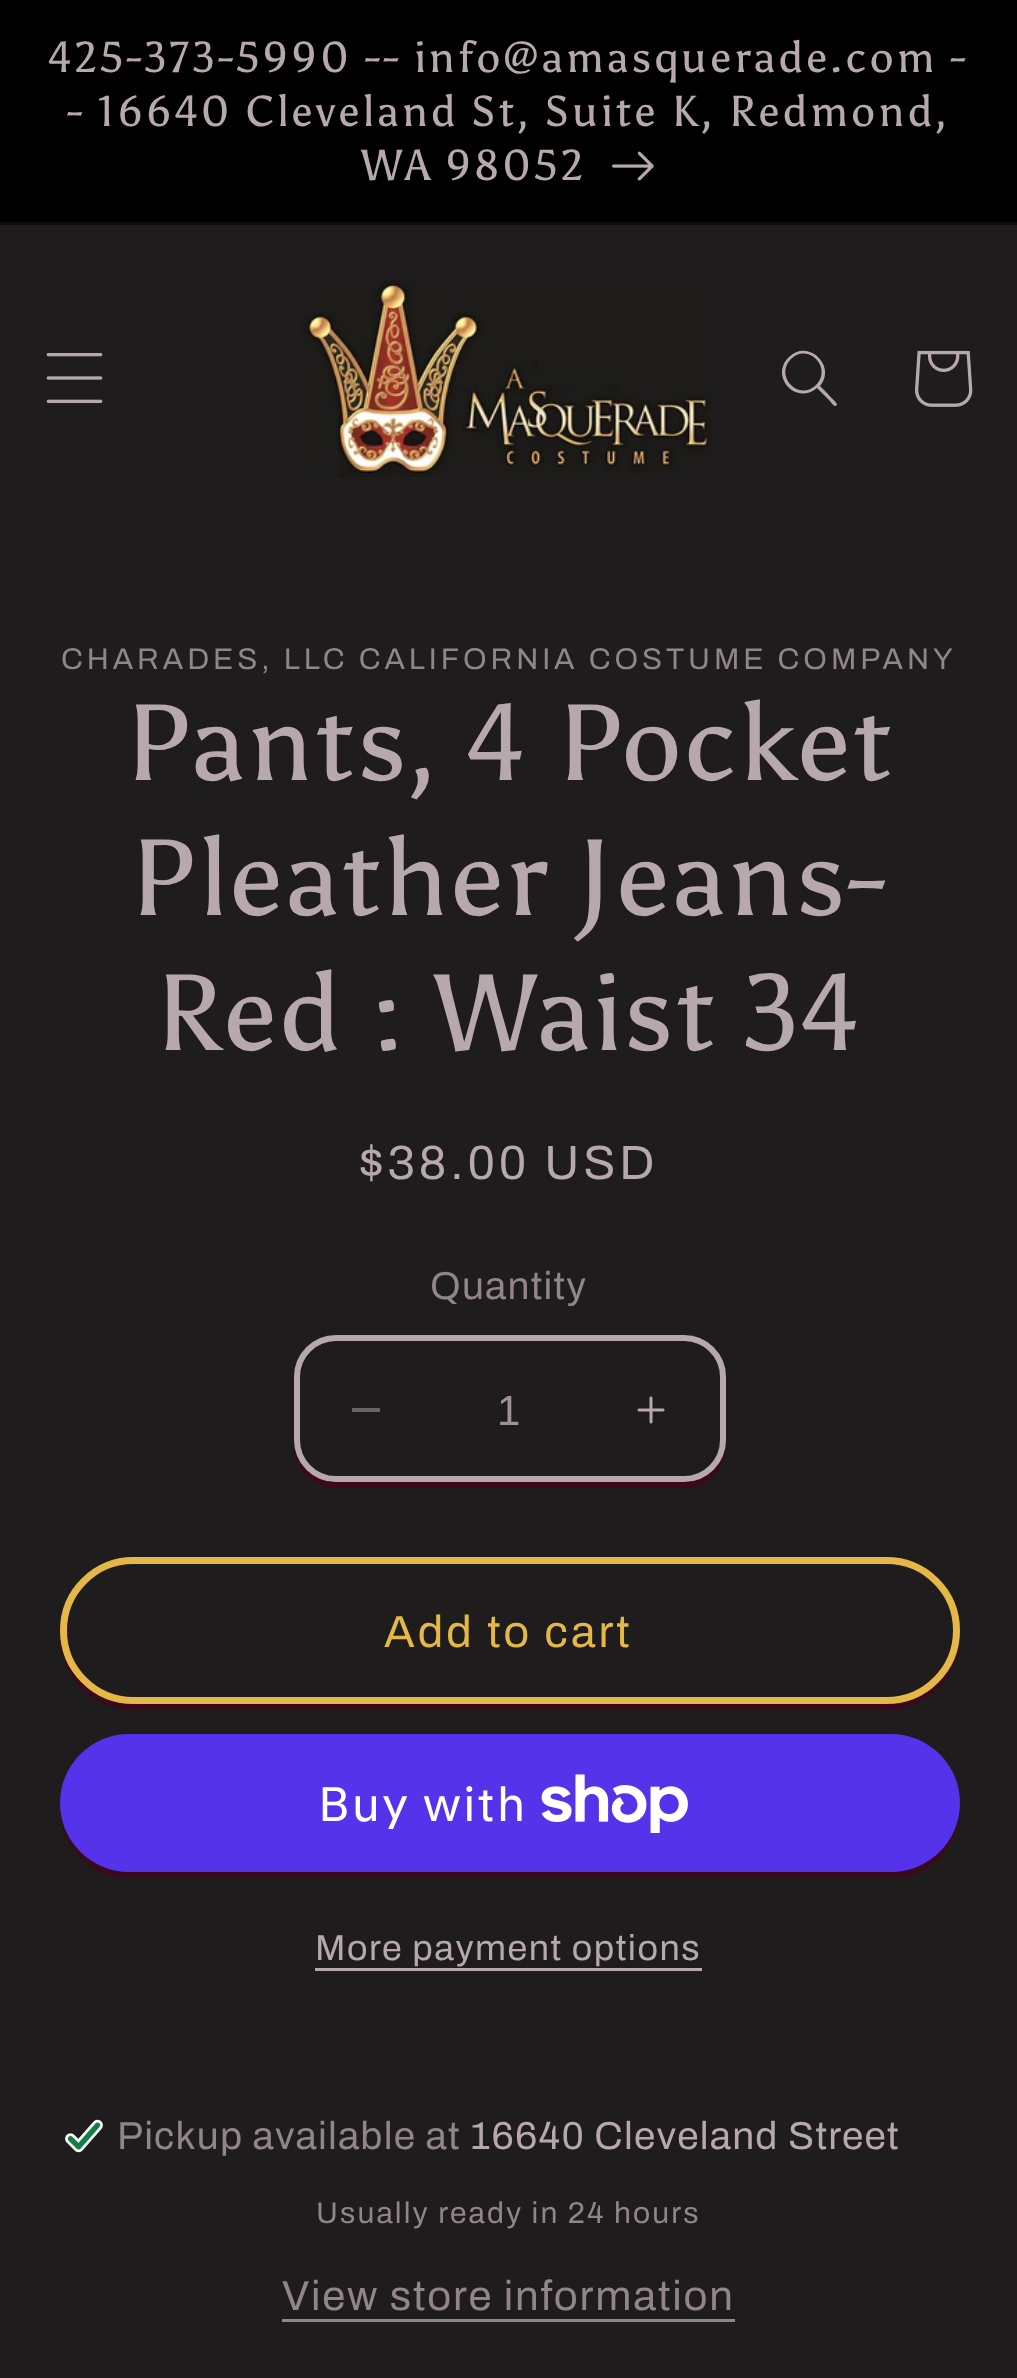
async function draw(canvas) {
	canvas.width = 1017;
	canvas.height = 2378;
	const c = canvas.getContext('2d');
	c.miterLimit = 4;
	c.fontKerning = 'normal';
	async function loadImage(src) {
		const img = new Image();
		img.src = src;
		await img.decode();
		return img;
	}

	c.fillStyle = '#1e1c1c';
	c.fillRect(0, 0, 1017, 2378);
	c.fillStyle = '#000';
	c.fillRect(0, 0, 1017, 222);
	c.fillStyle = '#0f0d0e';
	c.fillRect(0, 222, 1017, 3);
	c.letterSpacing = '3px';
	c.font = '43.2px Asul';
	c.fillStyle = '#b7a8ae';
	for (const [text, x, y] of [
		['425-373-5990 -- info@amasquerade.com -', 48, 72],
		['- 16640 Cleveland St, Suite K, Redmond,', 67, 126],
		['WA 98052', 361, 180],
	]) {
		c.fillText(text, x, y);
	}
	c.drawImage(await loadImage('img1.png'), 612, 151, 42, 30);
	c.drawImage(await loadImage('img2.png'), 46, 353, 57, 50);
	c.drawImage(await loadImage('img3.png'), 300, 279, 412, 198);
	c.beginPath();
	c.moveTo(816, 385);
	c.bezierCurveTo(799, 402, 774, 376, 791, 359);
	c.bezierCurveTo(808, 342, 833, 368, 816, 385);
	c.closePath();
	c.moveTo(817, 388);
	c.bezierCurveTo(796, 406, 769, 376, 789, 357);
	c.bezierCurveTo(808, 338, 837, 366, 820, 386);
	c.bezierCurveTo(822, 388, 837, 403, 837, 404);
	c.lineTo(836, 406);
	c.bezierCurveTo(834, 407, 830, 401, 829, 400);
	c.closePath();
	c.fill('evenodd');
	c.drawImage(await loadImage('img4.png'), 915, 350, 58, 57);
	c.letterSpacing = '3.9px';
	c.font = '30px Archivo';
	c.fillStyle = '#91858a';
	c.fillText('CHARADES, LLC CALIFORNIA COSTUME COMPANY', 61, 669);
	c.letterSpacing = '2.2px';
	c.font = '108px Asul';
	c.fillStyle = '#b7a8ae';
	for (const [text, x, y] of [
		['Pants, 4 Pocket', 124, 780],
		['Pleather Jeans-', 129, 915],
		['Red : Waist 34', 154, 1050],
	]) {
		c.fillText(text, x, y);
	}
	c.letterSpacing = '3.9px';
	c.font = '48px Archivo';
	c.fillText('$38.00 USD', 359, 1179);
	c.letterSpacing = '1.2px';
	c.font = '39px Archivo';
	c.fillStyle = '#91858a';
	c.fillText('Quantity', 430, 1299);
	c.fillStyle = '#3d081b';
	c.beginPath();
	c.moveTo(294, 1440);
	c.lineTo(294, 1446);
	c.bezierCurveTo(294, 1469, 313, 1488, 336, 1488);
	c.lineTo(684, 1488);
	c.bezierCurveTo(707, 1488, 726, 1469, 726, 1446);
	c.lineTo(726, 1440);
	c.bezierCurveTo(726, 1463, 707, 1482, 684, 1482);
	c.lineTo(336, 1482);
	c.bezierCurveTo(313, 1482, 294, 1463, 294, 1440);
	c.closePath();
	c.fill();
	c.fillStyle = '#1e1c1c';
	c.beginPath();
	c.roundRect(294, 1335, 432, 147, 42);
	c.fill();
	c.fillStyle = '#6b6265';
	c.fillRect(352, 1408, 28, 4);
	c.drawImage(await loadImage('img5.png'), 637, 1396, 28, 28);
	c.beginPath();
	c.roundRect(297, 1338, 426, 141, 39);
	c.strokeStyle = '#b7a8ae';
	c.lineWidth = 6;
	c.stroke();
	c.letterSpacing = '0px';
	c.font = '42px Liberation Sans';
	c.fillStyle = '#a09398';
	c.fillText('1', 497, 1425);
	c.fillStyle = '#3a0a1b';
	c.beginPath();
	c.moveTo(60, 1634);
	c.lineTo(60, 1636);
	c.bezierCurveTo(60, 1677, 93, 1710, 134, 1710);
	c.lineTo(886, 1710);
	c.bezierCurveTo(927, 1710, 960, 1677, 960, 1636);
	c.lineTo(960, 1634);
	c.bezierCurveTo(958, 1673, 926, 1704, 886, 1704);
	c.lineTo(134, 1704);
	c.bezierCurveTo(94, 1704, 62, 1673, 60, 1634);
	c.closePath();
	c.fill();
	c.fillStyle = '#1e1c1c';
	c.beginPath();
	c.roundRect(60, 1557, 900, 147, 73.5);
	c.fill();
	c.beginPath();
	c.roundRect(63, 1560, 894, 141, 70.5);
	c.strokeStyle = '#1e1c1c';
	c.stroke();
	c.beginPath();
	c.roundRect(63.5, 1560.5, 893, 140, 70);
	c.strokeStyle = '#e4b746';
	c.lineWidth = 7;
	c.stroke();
	c.letterSpacing = '3px';
	c.font = '45px Archivo';
	c.fillStyle = '#e4b746';
	c.fillText('Add to cart', 384, 1647);
	c.fillStyle = '#3a0a1b';
	c.beginPath();
	c.moveTo(60, 1806);
	c.lineTo(60, 1809);
	c.bezierCurveTo(60, 1847, 91, 1878, 129, 1878);
	c.lineTo(891, 1878);
	c.bezierCurveTo(929, 1878, 960, 1847, 960, 1809);
	c.lineTo(960, 1806);
	c.bezierCurveTo(958, 1843, 928, 1872, 891, 1872);
	c.lineTo(129, 1872);
	c.bezierCurveTo(92, 1872, 62, 1843, 60, 1806);
	c.closePath();
	c.fill();
	c.fillStyle = '#5433eb';
	c.beginPath();
	c.roundRect(60, 1734, 900, 138, 69);
	c.fill();
	c.letterSpacing = '1.8px';
	c.font = '48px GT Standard';
	c.fillStyle = '#fff';
	c.fillText('Buy with', 318, 1821);
	c.drawImage(await loadImage('img6.png'), 541, 1774, 147, 59);
	c.letterSpacing = '1.5px';
	c.font = '36px Archivo';
	c.fillStyle = '#b7a8ae';
	c.fillText('More payment options', 315, 1960);
	c.fillRect(315, 1968, 387, 3);
	c.drawImage(await loadImage('img7.png'), 65, 2119, 38, 34);
	c.letterSpacing = '1.2px';
	c.font = '39px Archivo';
	c.fillStyle = '#91858a';
	c.fillText('Pickup available at', 117, 2149);
	c.fillStyle = '#b7a8ae';
	c.fillText('16640 Cleveland Street', 470, 2149);
	c.letterSpacing = '2.1px';
	c.font = '30px Archivo';
	c.fillStyle = '#91858a';
	c.fillText('Usually ready in 24 hours', 316, 2223);
	c.letterSpacing = '1.8px';
	c.font = '42px Archivo';
	c.fillText('View store information', 282, 2310);
	c.fillRect(282, 2319, 453, 3);
}

draw(document.querySelector('canvas'));
